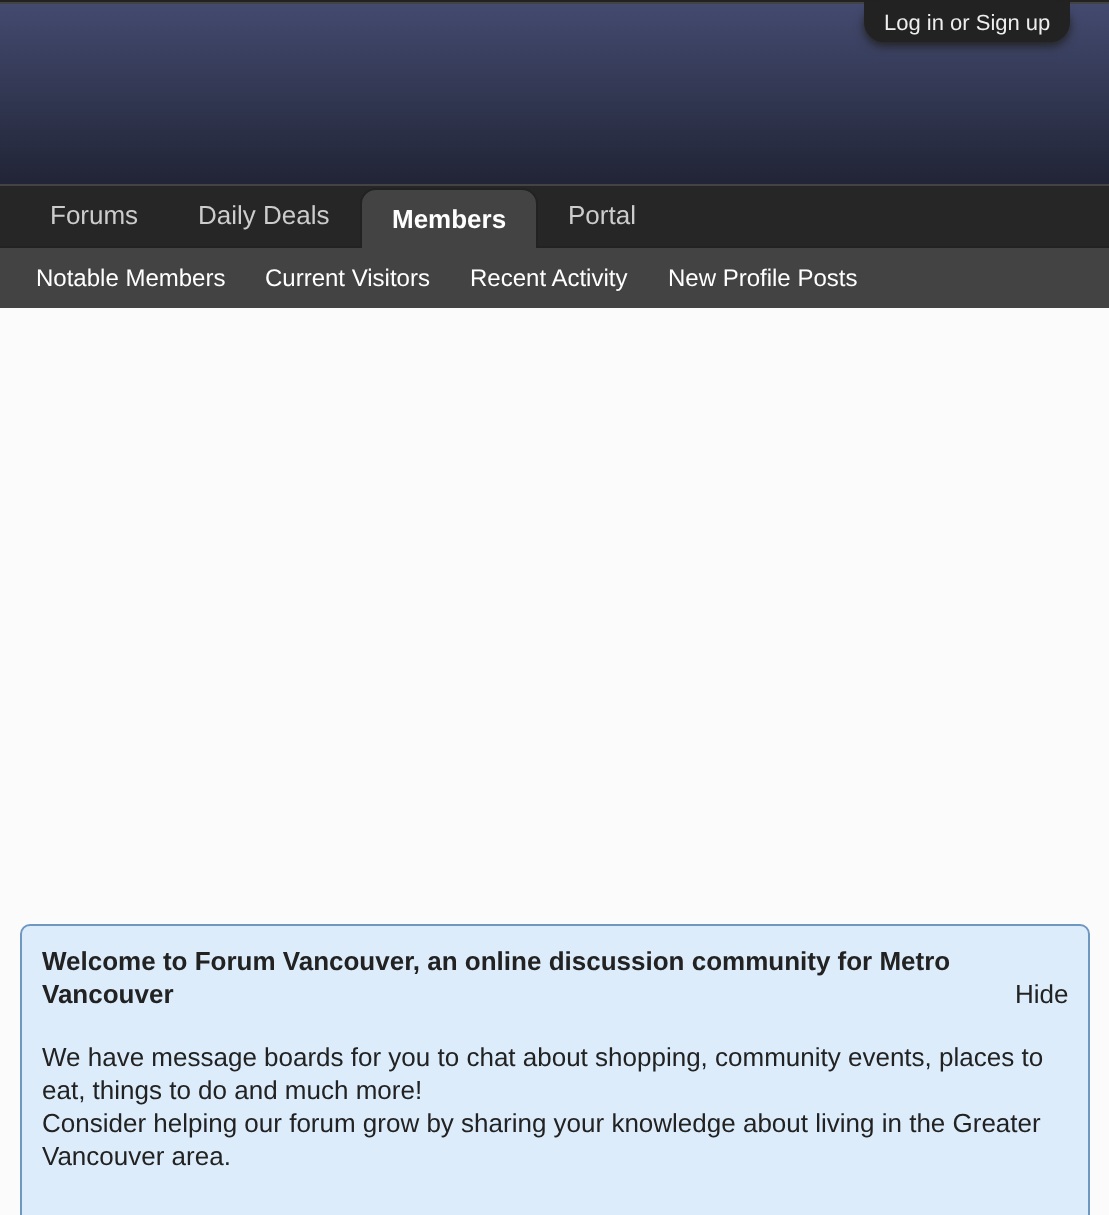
async function draw(canvas) {
	canvas.width = 1109;
	canvas.height = 1215;
	const c = canvas.getContext('2d');
	c.miterLimit = 4;
	c.fontKerning = 'normal';
	let gradient;

	c.fillStyle = '#fbfbfb';
	c.fillRect(0, 0, 1109, 1215);
	c.fillStyle = '#222';
	c.fillRect(0, 0, 1109, 2);
	c.fillStyle = '#434343';
	c.fillRect(0, 2, 1109, 2);
	gradient = c.createLinearGradient(555, 4, 555, 308);
	gradient.addColorStop(0, '#434a6f');
	gradient.addColorStop(0.58, '#222537');
	c.fillStyle = gradient;
	c.fillRect(0, 4, 1109, 180);
	c.fillStyle = '#222';
	c.filter = 'blur(5px)';
	c.beginPath();
	c.roundRect(864, 6, 206, 40, 20);
	c.fill();
	c.filter = 'none';
	c.beginPath();
	c.roundRect(864, 2, 206, 40, [0, 0, 20, 20]);
	c.fill();
	c.font = '22px Liberation Sans';
	c.fillStyle = '#eee';
	c.fillText('Log in or Sign up', 884, 30);
	for (const [x, y, w, h, color] of [
		[0, 186, 1109, 60, '#262626'],
		[0, 184, 1109, 2, '#434343'],
		[0, 246, 1109, 2, '#222'],
	]) {
		c.fillStyle = color;
		c.fillRect(x, y, w, h);
	}
	c.font = '26px Liberation Sans';
	c.fillStyle = '#ccc';
	for (const [text, x, y] of [
		['Forums', 50, 224],
		['Daily Deals', 198, 224],
		['Portal', 568, 224],
	]) {
		c.fillText(text, x, y);
	}
	c.fillStyle = '#434343';
	c.beginPath();
	c.roundRect(361, 189, 176, 62, [15, 15, 0, 0]);
	c.fill();
	c.strokeStyle = '#222';
	c.lineWidth = 2;
	c.stroke();
	c.font = 'bold 26px Liberation Sans';
	c.fillStyle = '#fff';
	c.fillText('Members', 392, 228);
	c.fillStyle = '#434343';
	c.fillRect(0, 248, 1109, 60);
	c.font = '24px Liberation Sans';
	c.fillStyle = '#fff';
	for (const [text, x, y] of [
		['Notable Members', 36, 286],
		['Current Visitors', 265, 286],
		['Recent Activity', 470, 286],
		['New Profile Posts', 668, 286],
	]) {
		c.fillText(text, x, y);
	}
	c.fillStyle = '#dcecfb';
	c.beginPath();
	c.roundRect(21, 925, 1068, 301, 9);
	c.fill();
	c.strokeStyle = '#6f98c0';
	c.stroke();
	c.font = 'bold 26px Liberation Sans';
	c.fillStyle = '#222';
	c.fillText('Welcome to Forum Vancouver, an online discussion community for Metro', 42, 970);
	c.fillText('Vancouver', 42, 1003);
	c.font = '26px Liberation Sans';
	for (const [text, x, y] of [
		['Hide', 1015, 1003],
		['We have message boards for you to chat about shopping, community events, places to', 42, 1066],
		['eat, things to do and much more!', 42, 1099],
		['Consider helping our forum grow by sharing your knowledge about living in the Greater', 42, 1132],
		['Vancouver area.', 42, 1165],
	]) {
		c.fillText(text, x, y);
	}
}

draw(document.querySelector('canvas'));
